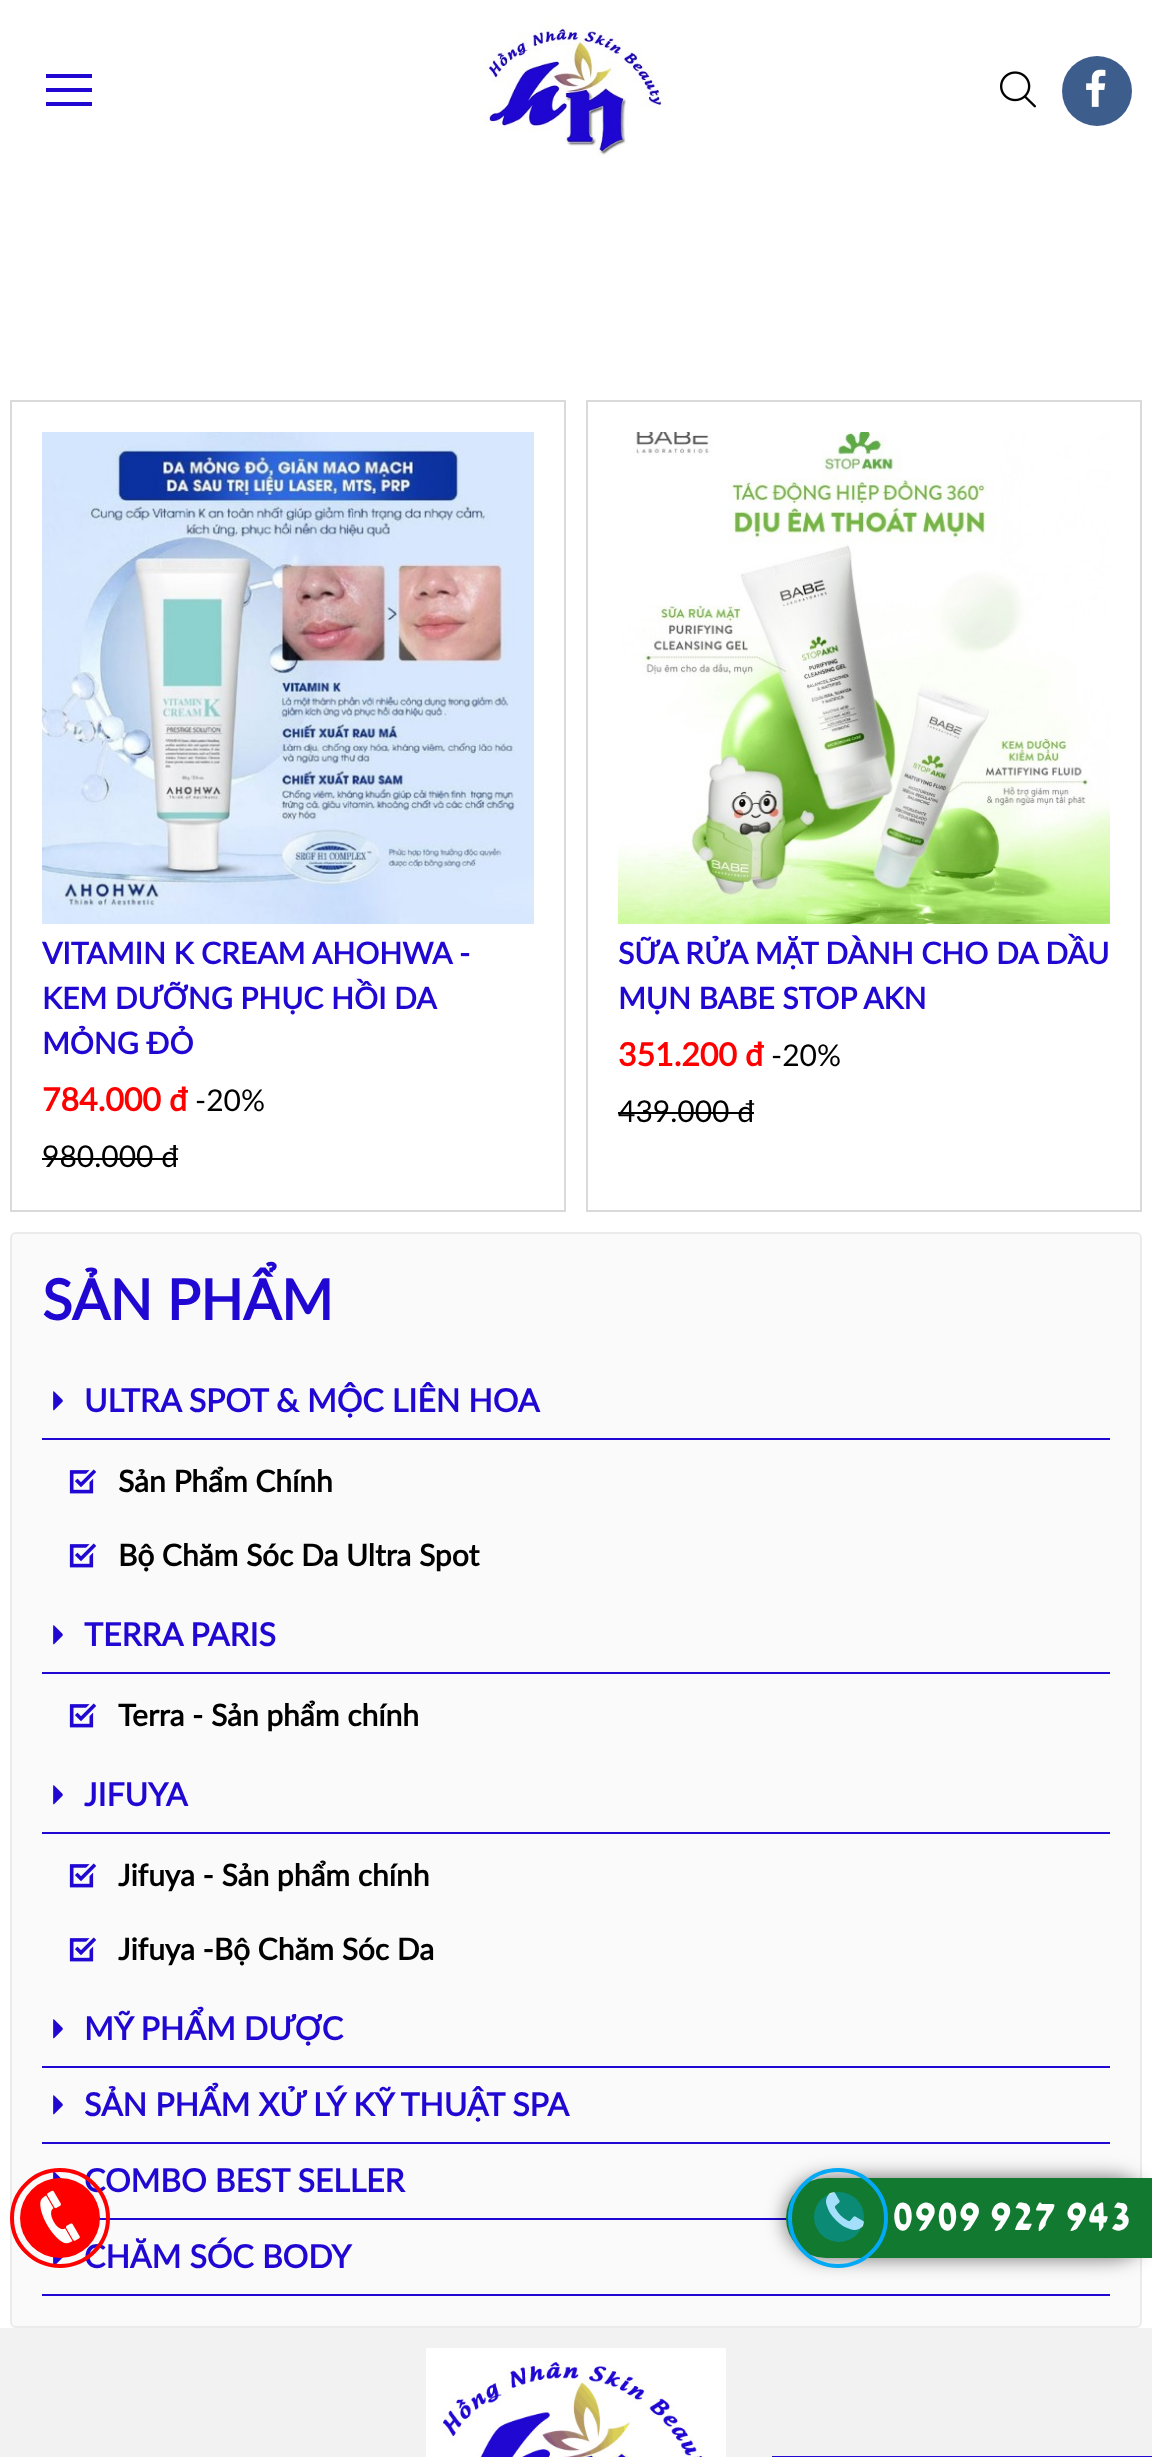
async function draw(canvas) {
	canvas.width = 1152;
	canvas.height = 2457;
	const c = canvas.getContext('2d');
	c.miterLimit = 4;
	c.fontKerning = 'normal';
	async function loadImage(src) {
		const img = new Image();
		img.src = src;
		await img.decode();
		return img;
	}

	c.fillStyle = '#fff';
	c.fillRect(0, 0, 1152, 2457);
	c.drawImage(await loadImage('img1.png'), 478, 20, 188, 137);
	c.drawImage(await loadImage('img2.png'), 1000, 71, 36, 37);
	c.fillStyle = '#3d5d8c';
	c.beginPath();
	c.arc(1097, 91, 35, 0, 2 * Math.PI);
	c.fill();
	c.drawImage(await loadImage('img3.png'), 1086, 69, 20, 38);
	for (const [x, y, w, h, color] of [
		[46, 88, 46, 4, '#2008d2'],
		[46, 74, 46, 4, '#2008d2'],
		[46, 102, 46, 4, '#2008d2'],
		[0, 2328, 1152, 129, '#f2f2f2'],
		[772, 2456, 380, 1, '#2008d2'],
	]) {
		c.fillStyle = color;
		c.fillRect(x, y, w, h);
	}
	c.fillStyle = '#fafafa';
	c.beginPath();
	c.roundRect(11, 1233, 1130, 1094, 5);
	c.fill();
	c.strokeStyle = '#ebebeb';
	c.lineWidth = 2;
	c.stroke();
	c.fillStyle = '#2008d2';
	c.fillRect(99, 2218, 688, 2);
	c.drawImage(await loadImage('img9.png'), 53, 2172, 9, 7);
	c.font = 'bold 32px Lato';
	c.fillText('COMBO BEST SELLER', 84, 2192);
	c.drawImage(await loadImage('img10.png'), 53, 2257, 10, 7);
	c.fillText('CHĂM SÓC BODY', 84, 2268);
	c.fillStyle = '#f00';
	c.beginPath();
	c.arc(60, 2218, 40, 0, 2 * Math.PI);
	c.fill();
	c.beginPath();
	c.arc(60, 2218, 48, 0, 2 * Math.PI);
	c.strokeStyle = '#f00';
	c.lineWidth = 4;
	c.stroke();
	c.drawImage(await loadImage('img4.png'), 40, 2190, 40, 54);
	c.strokeStyle = '#dadada';
	c.lineWidth = 2;
	c.strokeRect(11, 401, 554, 810);
	c.drawImage(await loadImage('img5.png'), 42, 432, 492, 492);
	c.font = 'bold 30px Lato';
	c.fillStyle = '#2008d2';
	for (const [text, x, y] of [
		['VITAMIN K CREAM AHOHWA -', 42, 964],
		['KEM DƯỠNG PHỤC HỒI DA', 42, 1009],
		['MỎNG ĐỎ', 42, 1054],
	]) {
		c.fillText(text, x, y);
	}
	c.font = 'bold 32px Lato';
	c.fillStyle = '#f00';
	c.fillText('784.000 đ', 42, 1111);
	c.font = '30px Lato';
	c.fillStyle = '#000';
	c.fillText('-20%', 195, 1111);
	c.fillText('980.000 đ', 42, 1167);
	c.fillRect(42, 1158, 136, 2);
	c.strokeRect(587, 401, 554, 810);
	c.drawImage(await loadImage('img6.png'), 618, 432, 492, 492);
	c.font = 'bold 30px Lato';
	c.fillStyle = '#2008d2';
	c.fillText('SỮA RỬA MẶT DÀNH CHO DA DẦU', 618, 964);
	c.fillText('MỤN BABE STOP AKN', 618, 1009);
	c.font = 'bold 32px Lato';
	c.fillStyle = '#f00';
	c.fillText('351.200 đ', 618, 1066);
	c.font = '30px Lato';
	c.fillStyle = '#000';
	c.fillText('-20%', 771, 1066);
	c.fillText('439.000 đ', 618, 1122);
	c.fillRect(618, 1112, 136, 2);
	c.font = 'bold 56px Lato';
	c.fillStyle = '#2008d2';
	c.fillText('SẢN PHẨM', 42, 1320);
	c.fillRect(42, 1438, 1068, 2);
	c.drawImage(await loadImage('img7.png'), 53, 1391, 10, 20);
	c.font = 'bold 32px Lato';
	c.fillText('ULTRA SPOT & MỘC LIÊN HOA', 84, 1412);
	c.drawImage(await loadImage('img8.png'), 69, 1469, 28, 25);
	c.font = 'bold 30px Lato';
	c.fillStyle = '#000';
	c.fillText('Sản Phẩm Chính', 118, 1492);
	c.drawImage(await loadImage('img8.png'), 69, 1543, 28, 25);
	c.fillText('Bộ Chăm Sóc Da Ultra Spot', 118, 1566);
	c.fillStyle = '#2008d2';
	c.fillRect(42, 1672, 1068, 2);
	c.drawImage(await loadImage('img7.png'), 53, 1625, 10, 20);
	c.font = 'bold 32px Lato';
	c.fillText('TERRA PARIS', 84, 1646);
	c.drawImage(await loadImage('img8.png'), 69, 1703, 28, 25);
	c.font = 'bold 30px Lato';
	c.fillStyle = '#000';
	c.fillText('Terra - Sản phẩm chính', 118, 1726);
	c.fillStyle = '#2008d2';
	c.fillRect(42, 1832, 1068, 2);
	c.drawImage(await loadImage('img7.png'), 53, 1785, 10, 20);
	c.font = 'bold 32px Lato';
	c.fillText('JIFUYA', 84, 1806);
	c.drawImage(await loadImage('img8.png'), 69, 1863, 28, 25);
	c.font = 'bold 30px Lato';
	c.fillStyle = '#000';
	c.fillText('Jifuya - Sản phẩm chính', 118, 1886);
	c.drawImage(await loadImage('img8.png'), 69, 1937, 28, 25);
	c.fillText('Jifuya -Bộ Chăm Sóc Da', 118, 1960);
	c.fillStyle = '#2008d2';
	c.fillRect(42, 2066, 1068, 2);
	c.drawImage(await loadImage('img7.png'), 53, 2019, 10, 20);
	c.font = 'bold 32px Lato';
	c.fillText('MỸ PHẨM DƯỢC', 84, 2040);
	c.fillRect(42, 2142, 1068, 2);
	c.drawImage(await loadImage('img7.png'), 53, 2095, 10, 20);
	c.fillText('SẢN PHẨM XỬ LÝ KỸ THUẬT SPA', 84, 2116);
	c.fillRect(42, 2294, 1068, 2);
	c.fillStyle = '#0000008f';
	c.filter = 'blur(10px)';
	c.beginPath();
	c.roundRect(786, 2178, 366, 80, 40);
	c.fill();
	c.filter = 'none';
	c.fillStyle = '#117930';
	c.beginPath();
	c.roundRect(786, 2178, 366, 80, [40, 0, 0, 40]);
	c.fill();
	c.drawImage(await loadImage('img11.png'), 826, 2192, 38, 38);
	c.fillStyle = '#03a9f45c';
	c.beginPath();
	c.arc(839, 2217, 25, 0, 2 * Math.PI);
	c.fill();
	c.beginPath();
	c.arc(838, 2218, 48, 0, 2 * Math.PI);
	c.strokeStyle = '#03a9f4';
	c.lineWidth = 4;
	c.stroke();
	c.font = 'bold 44px David Libre';
	c.fillStyle = '#fff';
	c.fillText('0909 927 943', 892, 2230);
	c.drawImage(await loadImage('img12.png'), 426, 2348, 300, 109);
}

draw(document.querySelector('canvas'));
